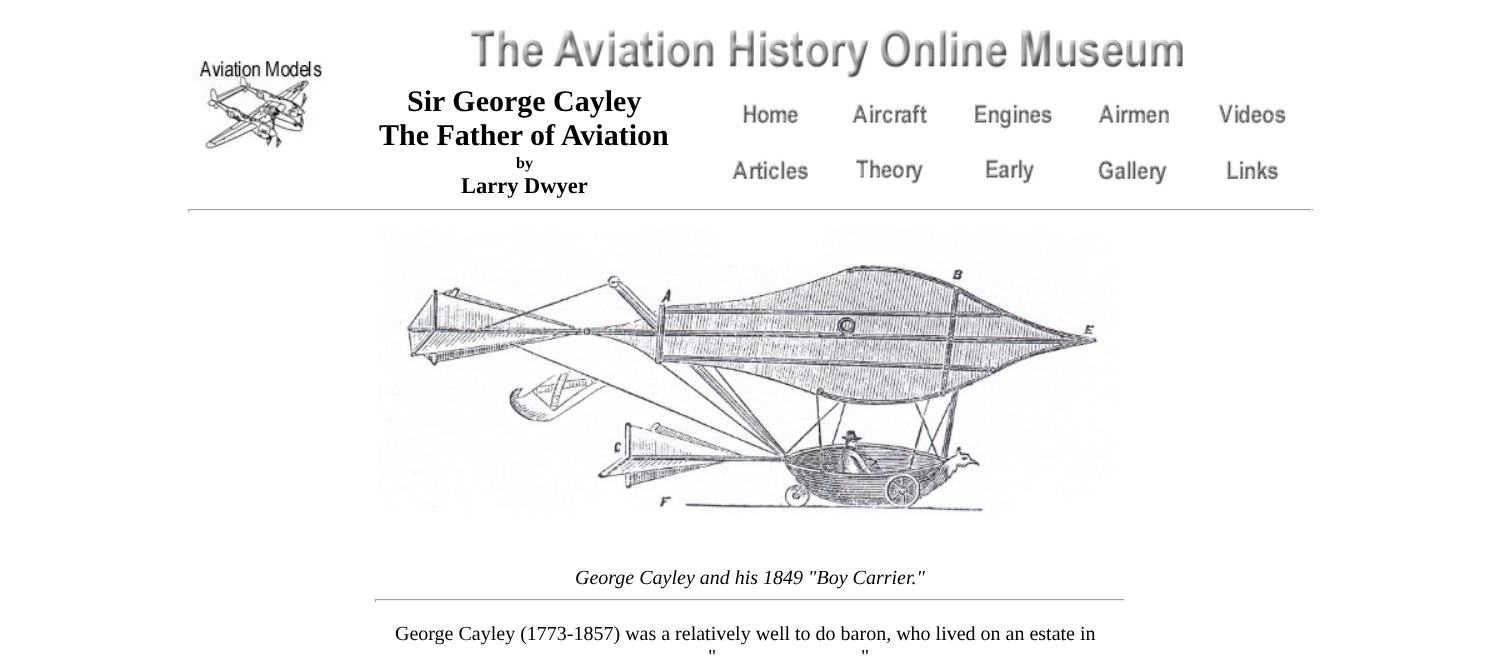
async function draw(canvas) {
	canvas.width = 1499;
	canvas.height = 659;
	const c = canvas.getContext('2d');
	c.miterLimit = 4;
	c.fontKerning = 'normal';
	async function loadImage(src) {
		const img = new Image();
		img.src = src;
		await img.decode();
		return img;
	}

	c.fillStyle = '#fff';
	c.fillRect(0, 0, 1499, 659);
	c.drawImage(await loadImage('img1.png'), 471, 29, 713, 49);
	c.drawImage(await loadImage('img2.png'), 192, 61, 131, 88);
	c.font = 'bold 30px Liberation Serif';
	c.fillStyle = '#000';
	c.fillText('Sir George Cayley', 407, 111);
	c.fillText('The Father of Aviation', 379, 145);
	c.font = 'bold 16px Liberation Serif';
	c.fillText('by', 516, 168);
	c.font = 'bold 22.5px Liberation Serif';
	c.fillText('Larry Dwyer', 461, 193);
	c.drawImage(await loadImage('img3.png'), 743, 103, 55, 21);
	c.drawImage(await loadImage('img4.png'), 850, 103, 78, 21);
	c.drawImage(await loadImage('img5.png'), 974, 103, 78, 26);
	c.drawImage(await loadImage('img6.png'), 1098, 103, 73, 21);
	c.drawImage(await loadImage('img7.png'), 1218, 103, 68, 21);
	c.drawImage(await loadImage('img8.png'), 729, 159, 79, 22);
	c.drawImage(await loadImage('img9.png'), 856, 158, 71, 26);
	c.drawImage(await loadImage('img10.png'), 986, 158, 48, 26);
	c.drawImage(await loadImage('img11.png'), 1098, 159, 69, 27);
	c.drawImage(await loadImage('img12.png'), 1227, 159, 51, 22);
	for (const [x, y, w, h, color] of [
		[188, 209, 1125, 1, '#9f9f9f'],
		[1311, 209, 1, 3, '#eee'],
		[188, 210, 1125, 1, '#eee'],
		[188, 209, 1, 3, '#9f9f9f'],
	]) {
		c.fillStyle = color;
		c.fillRect(x, y, w, h);
	}
	c.drawImage(await loadImage('img13.png'), 379, 229, 736, 287);
	c.font = 'italic 20px Liberation Serif';
	c.fillStyle = '#000';
	c.fillText('George Cayley and his 1849 "Boy Carrier."', 575, 584);
	for (const [x, y, w, h, color] of [
		[375, 599, 750, 1, '#9f9f9f'],
		[1124, 599, 1, 3, '#eee'],
		[375, 600, 750, 1, '#eee'],
		[375, 599, 1, 3, '#9f9f9f'],
	]) {
		c.fillStyle = color;
		c.fillRect(x, y, w, h);
	}
	c.font = '20px Liberation Serif';
	c.fillStyle = '#000';
	for (const [text, x, y] of [
		['George Cayley (1773-1857) was a relatively well to do baron, who lived on an estate in', 395, 640],
		['"', 708, 663],
		['"', 861, 663],
	]) {
		c.fillText(text, x, y);
	}
}

draw(document.querySelector('canvas'));
